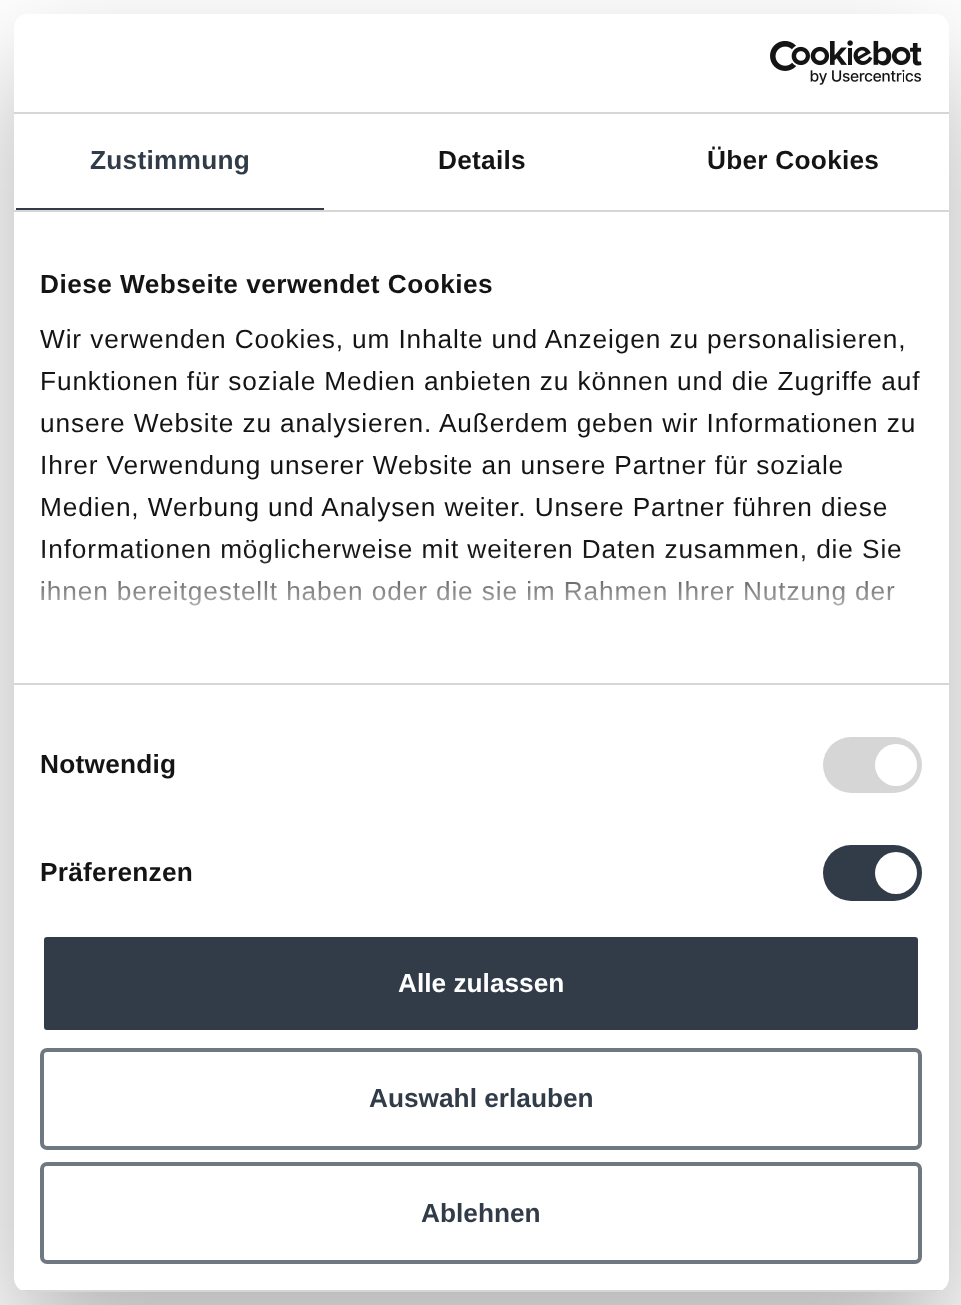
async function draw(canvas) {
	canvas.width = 961;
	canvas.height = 1305;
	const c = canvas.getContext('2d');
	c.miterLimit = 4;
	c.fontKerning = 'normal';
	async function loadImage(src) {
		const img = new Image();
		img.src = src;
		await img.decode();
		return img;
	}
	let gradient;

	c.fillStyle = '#fff';
	c.fillRect(0, 0, 961, 1305);
	c.fillStyle = '#0000004d';
	c.filter = 'blur(59.5px)';
	c.beginPath();
	c.roundRect(14, 70, 935, 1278, 14);
	c.fill();
	c.filter = 'none';
	c.fillStyle = '#fff';
	c.beginPath();
	c.roundRect(14, 14, 935, 1278, 14);
	c.fill();
	c.fillStyle = '#d6d6d6';
	c.fillRect(14, 112, 935, 2);
	c.drawImage(await loadImage('img1.png'), 770, 40, 152, 45);
	c.fillRect(14, 210, 935, 2);
	c.fillStyle = '#313c48';
	c.fillRect(16, 208, 308, 2);
	c.letterSpacing = '0.25px';
	c.font = 'bold 26.25px Liberation Sans';
	c.fillText('Zustimmung', 90, 169);
	c.fillStyle = '#141414';
	c.fillText('Details', 438, 169);
	c.fillText('Über Cookies', 707, 169);
	c.fillStyle = '#d6d6d6';
	c.fillRect(14, 683, 935, 2);
	c.letterSpacing = '0.45px';
	c.fillStyle = '#141414';
	c.fillText('Diese Webseite verwendet Cookies', 40, 293);
	c.letterSpacing = '0.88px';
	c.font = '26.25px Liberation Sans';
	for (const [text, x, y] of [
		['Wir verwenden Cookies, um Inhalte und Anzeigen zu personalisieren,', 40, 348],
		['Funktionen für soziale Medien anbieten zu können und die Zugriffe auf', 40, 390],
		['unsere Website zu analysieren. Außerdem geben wir Informationen zu', 40, 432],
		['Ihrer Verwendung unserer Website an unsere Partner für soziale', 40, 474],
		['Medien, Werbung und Analysen weiter. Unsere Partner führen diese', 40, 516],
		['Informationen möglicherweise mit weiteren Daten zusammen, die Sie', 40, 558],
		['ihnen bereitgestellt haben oder die sie im Rahmen Ihrer Nutzung der', 40, 600],
	]) {
		c.fillText(text, x, y);
	}
	gradient = c.createLinearGradient(470, 683, 470, 551);
	gradient.addColorStop(0, '#fff');
	gradient.addColorStop(0.5, '#ffffffcc');
	gradient.addColorStop(1, '#ffffff00');
	c.fillStyle = gradient;
	c.fillRect(42, 553, 858, 53);
	c.letterSpacing = '0.25px';
	c.font = 'bold 26.25px Liberation Sans';
	c.fillStyle = '#141414';
	c.fillText('Notwendig', 40, 773);
	c.fillStyle = '#d6d6d6';
	c.beginPath();
	c.roundRect(823, 737, 99, 56, 28);
	c.fill();
	c.fillStyle = '#fff';
	c.beginPath();
	c.arc(896, 765, 21, 0, 2 * Math.PI);
	c.fill();
	c.fillStyle = '#141414';
	c.fillText('Präferenzen', 40, 881);
	c.fillStyle = '#313c48';
	c.beginPath();
	c.roundRect(823, 845, 99, 56, 28);
	c.fill();
	c.fillStyle = '#fff';
	c.beginPath();
	c.arc(896, 873, 21, 0, 2 * Math.PI);
	c.fill();
	c.save();
	c.beginPath();
	c.roundRect(14, 14, 935, 1278, 14);
	c.clip();
	c.fillStyle = '#d6d6d6';
	c.fillRect(14, 1290, 935, 2);
	c.restore();
	c.fillStyle = '#313c48';
	c.beginPath();
	c.roundRect(42, 935, 878, 97, 5);
	c.fill();
	c.strokeStyle = '#fff';
	c.lineWidth = 4;
	c.stroke();
	c.letterSpacing = '0px';
	c.fillStyle = '#fff';
	c.fillText('Alle zulassen', 398, 992);
	c.beginPath();
	c.roundRect(42, 1050, 878, 98, 5);
	c.strokeStyle = '#6f7881';
	c.stroke();
	c.fillStyle = '#313c48';
	c.fillText('Auswahl erlauben', 369, 1107);
	c.beginPath();
	c.roundRect(42, 1164, 878, 98, 5);
	c.stroke();
	c.fillText('Ablehnen', 421, 1222);
}

draw(document.querySelector('canvas'));
